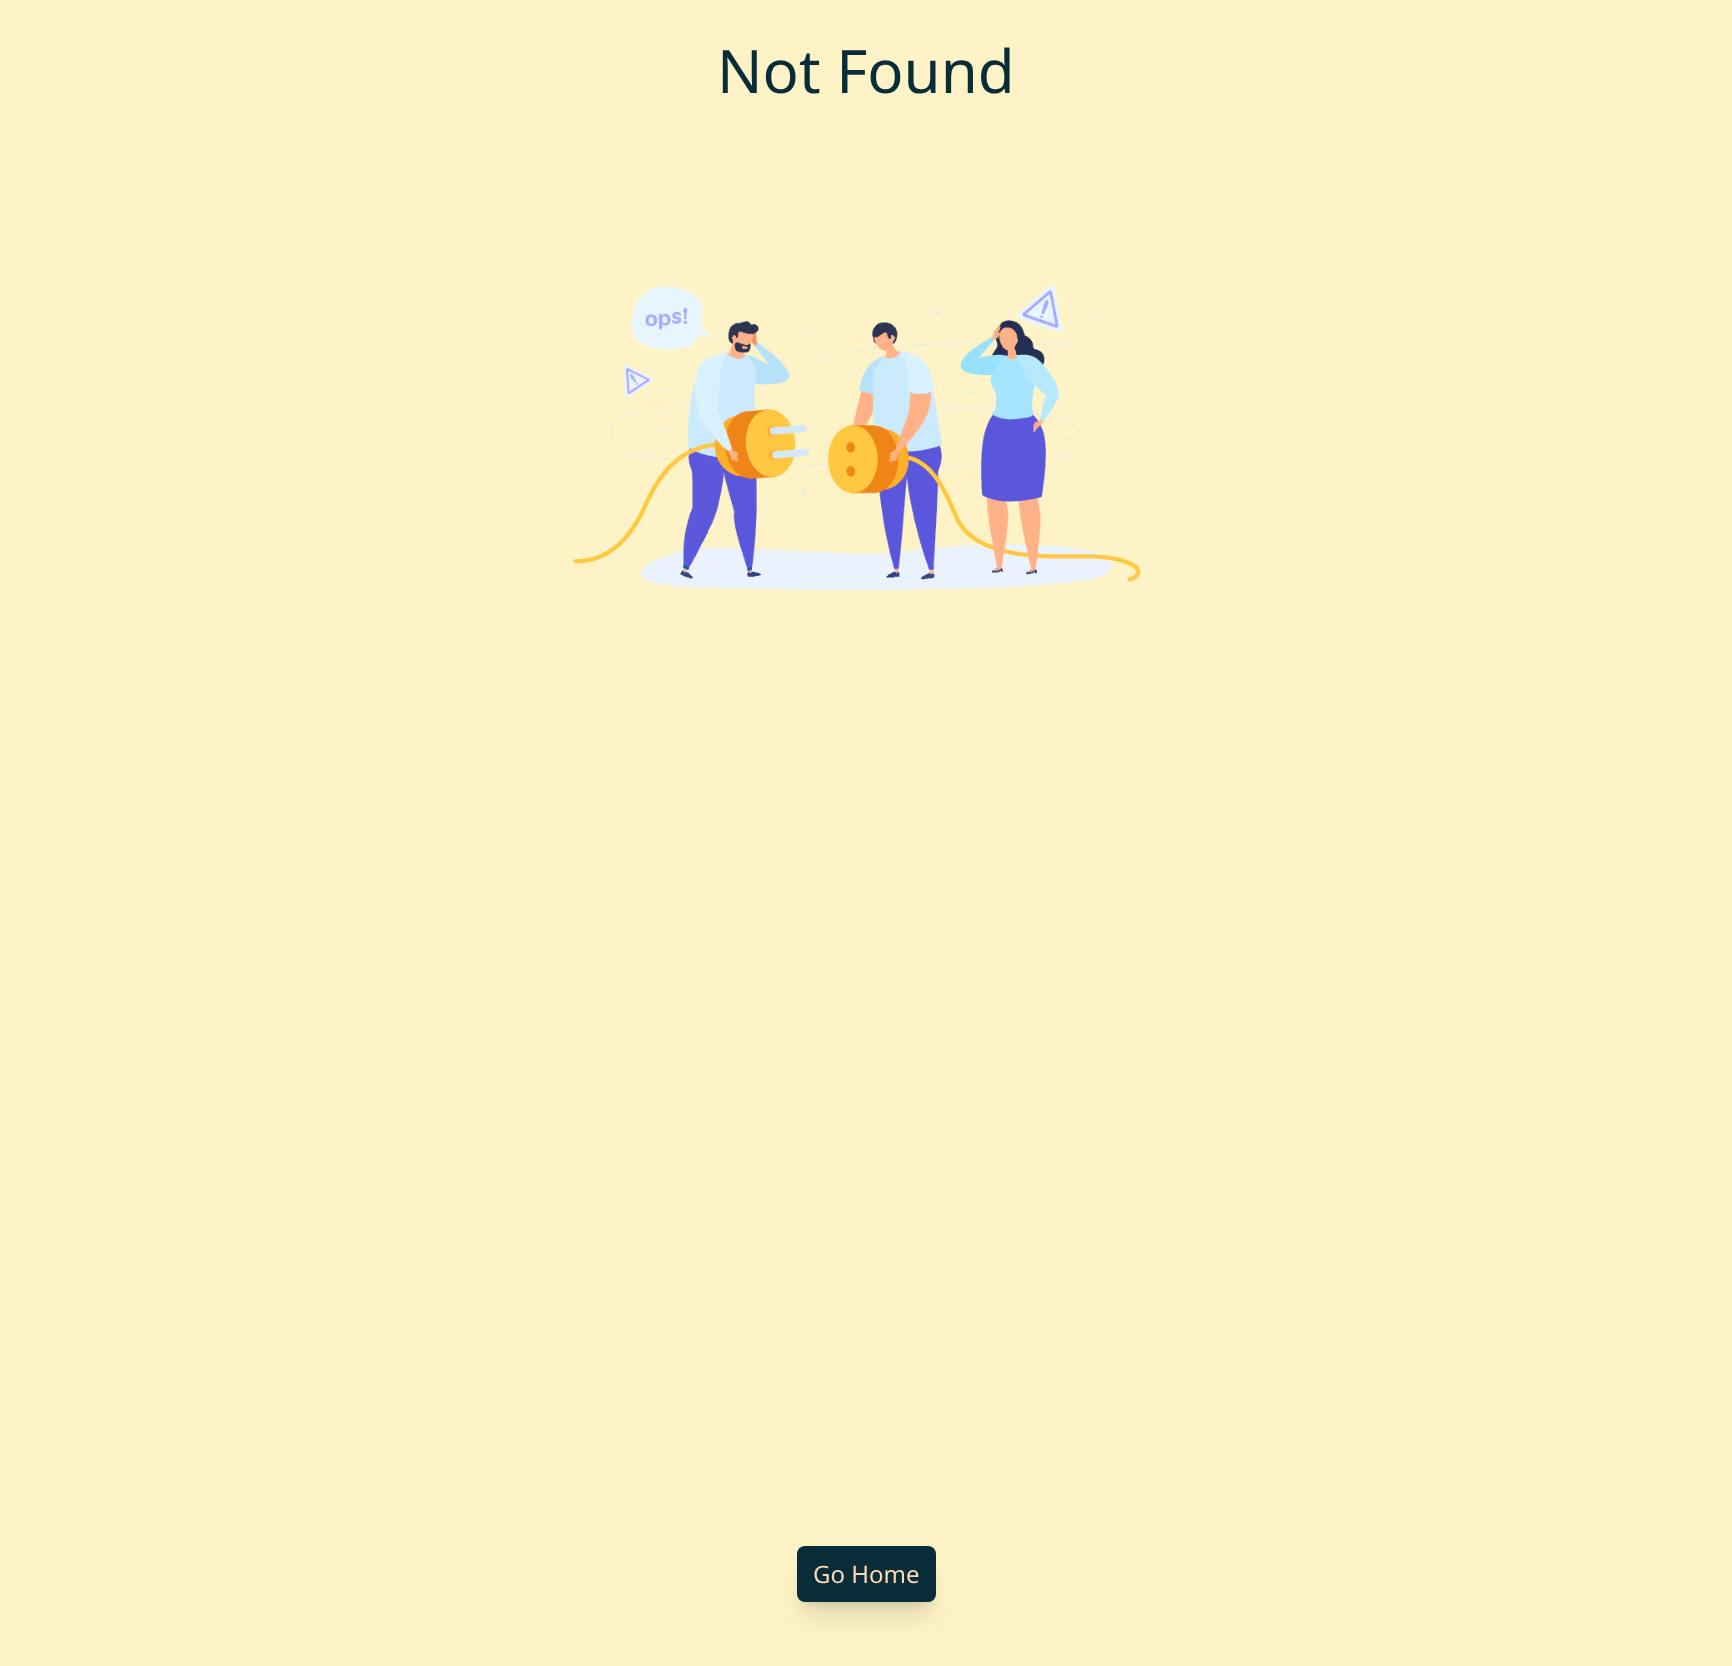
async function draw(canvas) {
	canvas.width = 1732;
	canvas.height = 1666;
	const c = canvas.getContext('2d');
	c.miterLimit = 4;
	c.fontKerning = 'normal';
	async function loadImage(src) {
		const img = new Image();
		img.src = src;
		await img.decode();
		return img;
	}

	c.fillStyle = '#fef3c6';
	c.fillRect(0, 0, 1732, 1666);
	c.font = '60px Noto Sans';
	c.fillStyle = '#082c38';
	c.fillText('Not Found', 717, 93);
	c.drawImage(await loadImage('img1.png'), 573, 285, 568, 306);
	c.fillStyle = '#0000001a';
	c.filter = 'blur(5px)';
	c.beginPath();
	c.roundRect(803, 1560, 127, 44, 2);
	c.fill();
	c.filter = 'none';
	c.filter = 'blur(12.5px)';
	c.beginPath();
	c.roundRect(802, 1571, 129, 46, 3);
	c.fill();
	c.filter = 'none';
	c.fillStyle = '#082c38';
	c.beginPath();
	c.roundRect(797, 1546, 139, 56, 8);
	c.fill();
	c.font = '24px Noto Sans';
	c.fillStyle = '#fcd8b4';
	c.fillText('Go Home', 813, 1583);
}

draw(document.querySelector('canvas'));
